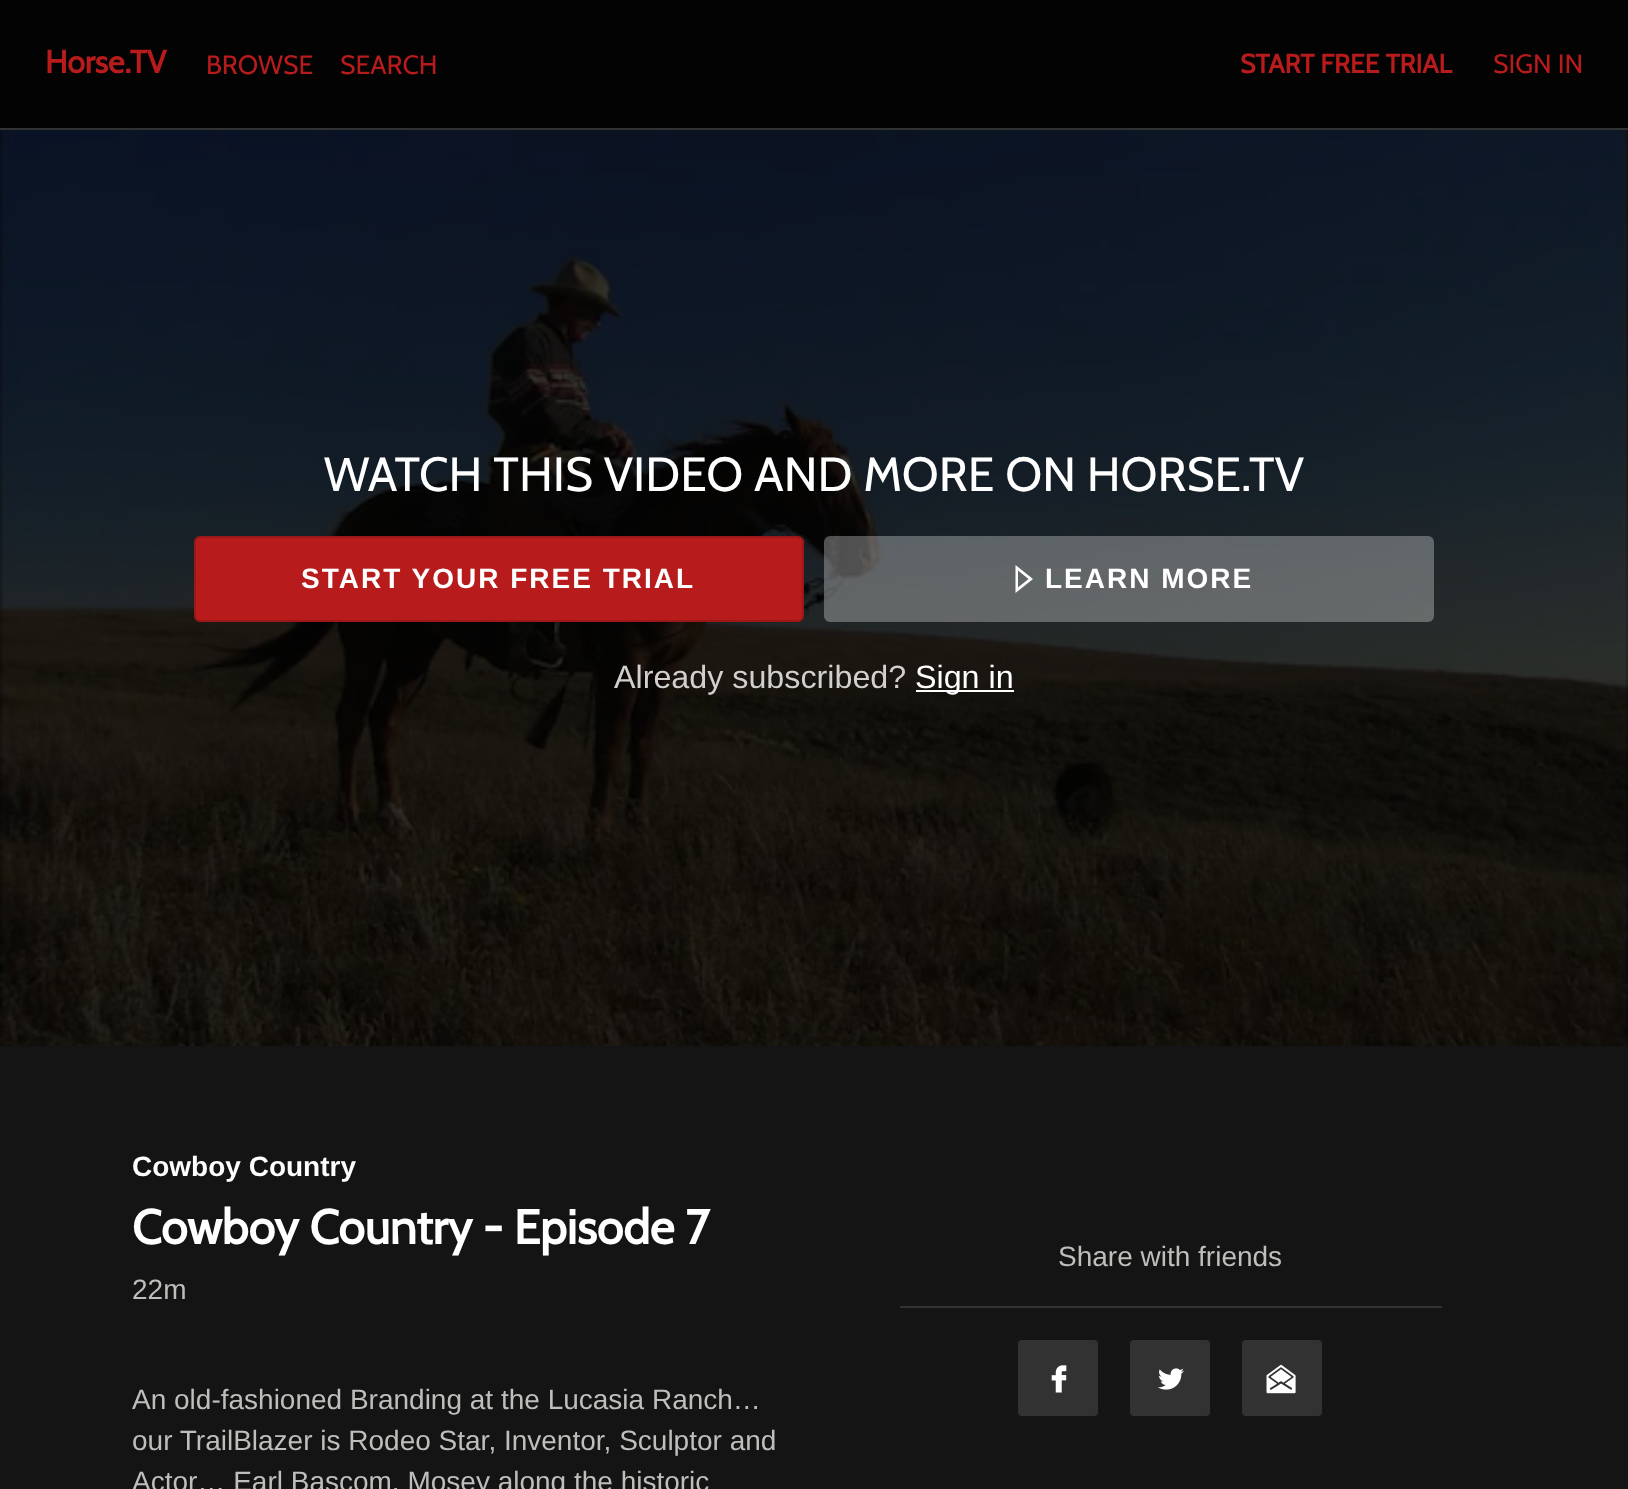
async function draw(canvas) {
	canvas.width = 1628;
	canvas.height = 1489;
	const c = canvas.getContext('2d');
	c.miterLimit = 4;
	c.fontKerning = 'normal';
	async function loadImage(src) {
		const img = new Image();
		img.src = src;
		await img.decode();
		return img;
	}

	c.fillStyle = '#141414';
	c.fillRect(0, 0, 1628, 1489);
	c.fillStyle = '#030303';
	c.fillRect(0, 0, 1628, 128);
	c.fillStyle = '#323232';
	c.fillRect(0, 128, 1628, 2);
	c.font = 'bold 32px Cabin';
	c.fillStyle = '#b81b1b';
	c.fillText('Horse.TV', 45, 73);
	c.font = '26.5px Cabin';
	c.fillText('BROWSE', 206, 74);
	c.fillText('SEARCH', 340, 74);
	c.font = 'bold 26.5px Cabin';
	c.fillText('START FREE TRIAL', 1240, 73);
	c.font = '26.5px Cabin';
	c.fillText('SIGN IN', 1493, 73);
	c.drawImage(await loadImage('img1.png'), 0, 130, 1628, 916);
	c.font = '48px Cabin';
	c.fillStyle = '#fff';
	c.fillText('WATCH THIS VIDEO AND MORE ON HORSE.TV', 324, 491);
	c.fillStyle = '#b81b1b';
	c.beginPath();
	c.roundRect(195, 537, 608, 84, 5);
	c.fill();
	c.strokeStyle = '#9c1717';
	c.lineWidth = 2;
	c.stroke();
	c.letterSpacing = '2px';
	c.font = 'bold 28px Liberation Sans';
	c.fillStyle = '#fff';
	c.fillText('START YOUR FREE TRIAL', 301, 588);
	c.fillStyle = '#ffffff4d';
	c.beginPath();
	c.roundRect(824, 536, 610, 86, 6);
	c.fill();
	c.fillStyle = '#fff';
	c.beginPath();
	c.moveTo(1015.5, 593);
	c.lineTo(1015.5, 565);
	c.lineTo(1033, 579);
	c.closePath();
	c.moveTo(1018, 570.5);
	c.lineTo(1018, 587.5);
	c.lineTo(1028.5, 579);
	c.closePath();
	c.fill();
	c.fillText('LEARN MORE', 1045, 588);
	c.letterSpacing = '0px';
	c.font = '32.25px Liberation Sans';
	c.fillStyle = '#d1d0cf';
	c.fillText('Already subscribed?', 614, 688);
	c.fillStyle = '#fff';
	c.fillRect(916, 690, 98, 2);
	c.fillText('Sign in', 915, 688);
	c.font = 'bold 28px Liberation Sans';
	c.fillText('Cowboy Country', 132, 1176);
	c.font = 'bold 48px Cabin';
	c.fillText('Cowboy Country - Episode 7', 132, 1244);
	c.font = '28px Liberation Sans';
	c.fillStyle = '#bebebb';
	for (const [text, x, y] of [
		['22m', 132, 1299],
		['An old-fashioned Branding at the Lucasia Ranch…', 132, 1409],
		['our TrailBlazer is Rodeo Star, Inventor, Sculptor and', 132, 1450],
		['Actor… Earl Bascom. Mosey along the historic', 132, 1491],
	]) {
		c.fillText(text, x, y);
	}
	c.fillStyle = '#323232';
	c.fillRect(900, 1306, 542, 2);
	c.fillStyle = '#bebebb';
	c.fillText('Share with friends', 1058, 1266);
	c.fillStyle = '#323232';
	c.beginPath();
	c.roundRect(1016, 1338, 84, 80, 6);
	c.fill();
	c.drawImage(await loadImage('img2.png'), 1051, 1365, 16, 28);
	c.beginPath();
	c.roundRect(1017, 1339, 82, 78, 5);
	c.strokeStyle = '#141414';
	c.stroke();
	c.beginPath();
	c.roundRect(1128, 1338, 84, 80, 6);
	c.fill();
	c.drawImage(await loadImage('img3.png'), 1158, 1368, 26, 22);
	c.beginPath();
	c.roundRect(1129, 1339, 82, 78, 5);
	c.stroke();
	c.beginPath();
	c.roundRect(1240, 1338, 84, 80, 6);
	c.fill();
	c.drawImage(await loadImage('img4.png'), 1266, 1364, 30, 30);
	c.beginPath();
	c.roundRect(1241, 1339, 82, 78, 5);
	c.stroke();
}

draw(document.querySelector('canvas'));
